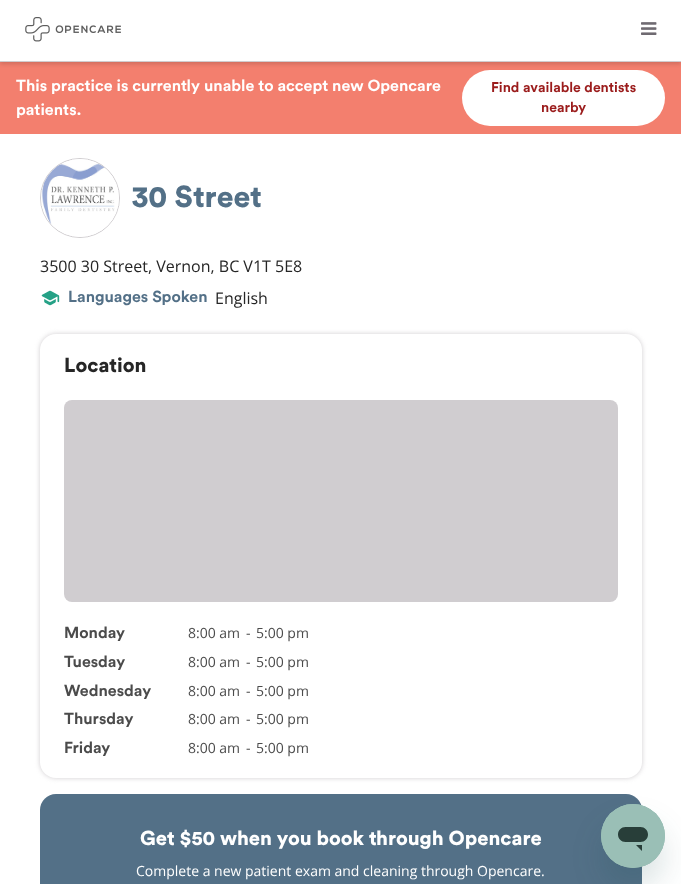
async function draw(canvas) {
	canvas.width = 681;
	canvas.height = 884;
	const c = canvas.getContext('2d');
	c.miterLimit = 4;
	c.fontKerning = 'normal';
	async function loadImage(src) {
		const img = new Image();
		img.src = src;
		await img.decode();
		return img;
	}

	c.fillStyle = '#fff';
	c.fillRect(0, 0, 681, 884);
	c.fillStyle = '#f37f6e';
	c.fillRect(0, 62, 681, 72);
	c.fillStyle = '#fff';
	c.beginPath();
	c.roundRect(462, 70, 203, 56, 28);
	c.fill();
	c.fillStyle = '#00000026';
	c.filter = 'blur(2px)';
	c.beginPath();
	c.rect(0, 2, 681, 62);
	c.fill();
	c.filter = 'none';
	c.fillStyle = '#fff';
	c.fillRect(0, 0, 681, 61);
	c.fillStyle = '#d0cdd0';
	c.fillRect(0, 61, 681, 1);
	c.drawImage(await loadImage('img1.png'), 25, 17, 96, 25);
	c.drawImage(await loadImage('img2.png'), 641, 22, 16, 13);
	c.font = 'bold 16px Circular';
	c.fillStyle = '#fff';
	c.fillText('This practice is currently unable to accept new Opencare', 16, 91);
	c.fillText('patients.', 16, 115);
	c.font = 'bold 14px Circular';
	c.fillStyle = '#9b1c1c';
	c.fillText('Find available dentists', 491, 92);
	c.fillText('nearby', 541, 112);
	c.beginPath();
	c.arc(80, 198, 39.5, 0, 2 * Math.PI);
	c.strokeStyle = '#d0cdd0';
	c.stroke();
	c.drawImage(await loadImage('img3.png'), 41, 159, 78, 78);
	c.font = '900 30px Circular';
	c.fillStyle = '#537087';
	c.fillText('30 Street', 132, 207);
	c.font = '16px Open Sans';
	c.fillStyle = '#262626';
	c.fillText('3500 30 Street, Vernon, BC V1T 5E8', 40, 272);
	c.drawImage(await loadImage('img4.png'), 41, 290, 19, 16);
	c.font = 'bold 16px Circular';
	c.fillStyle = '#537087';
	c.fillText('Languages Spoken', 68, 302);
	c.font = '16px Open Sans';
	c.fillStyle = '#262626';
	c.fillText('English', 215, 304);
	c.fillStyle = '#d0cdd0';
	c.filter = 'blur(2.5px)';
	c.beginPath();
	c.roundRect(40, 334, 602, 444, 16);
	c.fill();
	c.filter = 'none';
	c.fillStyle = '#fff';
	c.beginPath();
	c.roundRect(40, 334, 602, 444, 16);
	c.fill();
	c.font = '900 20px Circular';
	c.fillStyle = '#262626';
	c.fillText('Location', 64, 372);
	c.fillStyle = '#d0cdd0';
	c.beginPath();
	c.roundRect(64, 400, 554, 202, 8);
	c.fill();
	c.font = 'bold 16px Circular';
	c.fillStyle = '#4b4b4b';
	c.fillText('Monday', 64, 638);
	c.font = '14px Open Sans';
	for (const [text, x, y] of [
		['8:00 am', 188, 638],
		['-', 246, 638],
		['5:00 pm', 256, 638],
	]) {
		c.fillText(text, x, y);
	}
	c.font = 'bold 16px Circular';
	c.fillText('Tuesday', 64, 667);
	c.font = '14px Open Sans';
	for (const [text, x, y] of [
		['8:00 am', 188, 667],
		['-', 246, 667],
		['5:00 pm', 256, 667],
	]) {
		c.fillText(text, x, y);
	}
	c.font = 'bold 16px Circular';
	c.fillText('Wednesday', 64, 696);
	c.font = '14px Open Sans';
	for (const [text, x, y] of [
		['8:00 am', 188, 696],
		['-', 246, 696],
		['5:00 pm', 256, 696],
	]) {
		c.fillText(text, x, y);
	}
	c.font = 'bold 16px Circular';
	c.fillText('Thursday', 64, 724);
	c.font = '14px Open Sans';
	for (const [text, x, y] of [
		['8:00 am', 188, 724],
		['-', 246, 724],
		['5:00 pm', 256, 724],
	]) {
		c.fillText(text, x, y);
	}
	c.font = 'bold 16px Circular';
	c.fillText('Friday', 64, 753);
	c.font = '14px Open Sans';
	for (const [text, x, y] of [
		['8:00 am', 188, 753],
		['-', 246, 753],
		['5:00 pm', 256, 753],
	]) {
		c.fillText(text, x, y);
	}
	c.fillStyle = '#537087';
	c.beginPath();
	c.roundRect(40, 794, 602, 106, 16);
	c.fill();
	c.font = '900 20px Circular';
	c.fillStyle = '#fff';
	c.fillText('Get $50 when you book through Opencare', 140, 845);
	c.font = '14px Open Sans';
	c.fillText('Complete a new patient exam and cleaning through Opencare.', 136, 876);
	c.fillStyle = '#17494d26';
	c.filter = 'blur(15px)';
	c.beginPath();
	c.roundRect(601, 824, 64, 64, 32);
	c.fill();
	c.filter = 'none';
	c.drawImage(await loadImage('img5.png'), 601, 804, 64, 64);
}

draw(document.querySelector('canvas'));
